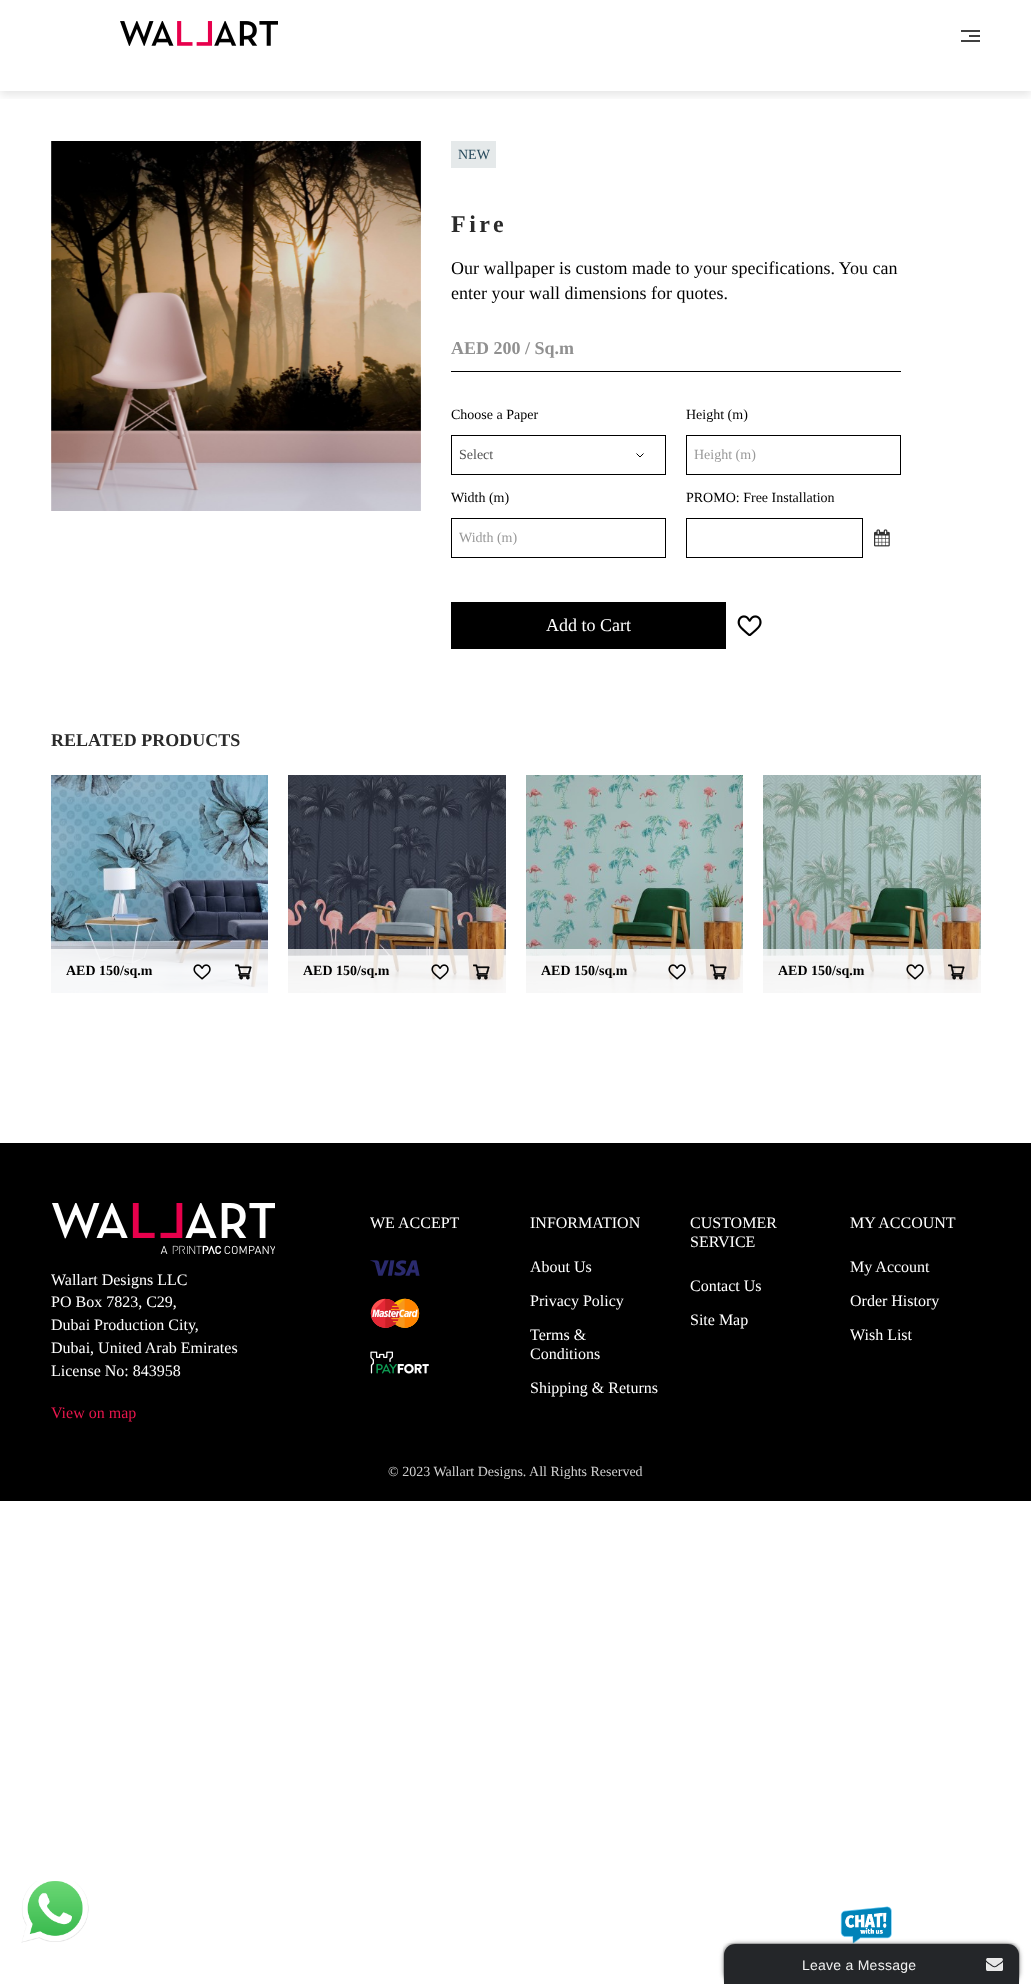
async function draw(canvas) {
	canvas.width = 1031;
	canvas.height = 1984;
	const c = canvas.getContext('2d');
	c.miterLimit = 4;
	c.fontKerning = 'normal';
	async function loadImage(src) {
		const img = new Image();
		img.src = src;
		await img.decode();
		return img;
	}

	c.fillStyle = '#fff';
	c.fillRect(0, 0, 1031, 1984);
	c.save();
	c.beginPath();
	c.rect(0, 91, 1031, 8);
	c.clip();
	c.fillStyle = '#0000001a';
	c.filter = 'blur(5px)';
	c.beginPath();
	c.rect(0, 4, 1031, 91);
	c.fill();
	c.filter = 'none';
	c.restore();
	c.drawImage(await loadImage('img1.png'), 120, 21, 158, 25);
	for (const [x, y, w, h, color] of [
		[961, 30, 19, 2, '#404040'],
		[969, 35, 11, 2, '#404040'],
		[961, 40, 19, 2, '#404040'],
	]) {
		c.fillStyle = color;
		c.fillRect(x, y, w, h);
	}
	c.drawImage(await loadImage('img2.png'), 51, 141, 370, 370);
	c.fillStyle = '#e5e9ea';
	c.fillRect(451, 141, 45, 27);
	c.font = '14px Liberation Serif';
	c.fillStyle = '#2a4c5e';
	c.fillText('NEW', 458, 159);
	c.letterSpacing = '3.5px';
	c.font = 'bold 24px Liberation Serif';
	c.fillStyle = '#2a2a2a';
	c.fillText('Fire', 451, 232);
	c.letterSpacing = '0px';
	c.font = '18px Liberation Serif';
	c.fillStyle = '#000';
	c.fillText('Our wallpaper is custom made to your specifications. You can', 451, 274);
	c.fillText('enter your wall dimensions for quotes.', 451, 299);
	c.fillRect(451, 371, 450, 1);
	c.font = 'bold 18px Liberation Serif';
	c.fillStyle = '#909090';
	c.fillText('AED 200 / Sq.m', 451, 354);
	c.font = '14px Liberation Serif';
	c.fillStyle = '#000';
	c.fillText('Choose a Paper', 451, 419);
	c.beginPath();
	c.moveTo(636.5, 453.5);
	c.lineTo(640, 457);
	c.lineTo(643.5, 453.5);
	c.strokeStyle = '#000';
	c.stroke();
	c.strokeRect(451.5, 435.5, 214, 39);
	c.fillStyle = '#555';
	c.fillText('Select', 459, 459);
	c.fillStyle = '#000';
	c.fillText('Height (m)', 686, 419);
	c.strokeRect(686.5, 435.5, 214, 39);
	c.fillStyle = '#999';
	c.fillText('Height (m)', 694, 459);
	c.fillStyle = '#000';
	c.fillText('Width (m)', 451, 502);
	c.strokeRect(451.5, 518.5, 214, 39);
	c.fillStyle = '#999';
	c.fillText('Width (m)', 459, 542);
	c.fillStyle = '#000';
	c.fillText('PROMO: Free Installation', 686, 502);
	c.strokeRect(686.5, 518.5, 176, 39);
	c.drawImage(await loadImage('img3.png'), 874, 529, 16, 18);
	c.fillRect(451, 602, 275, 47);
	c.font = '18px Liberation Serif';
	c.fillStyle = '#fff';
	c.fillText('Add to Cart', 546, 631);
	c.drawImage(await loadImage('img4.png'), 737, 615, 25, 21);
	c.font = 'bold 18px Liberation Serif';
	c.fillStyle = '#2a2a2a';
	c.fillText('RELATED PRODUCTS', 51, 746);
	c.drawImage(await loadImage('img5.png'), 51, 775, 217, 218);
	c.fillStyle = '#ffffffcc';
	c.fillRect(51, 949, 217, 44);
	c.font = 'bold 14px Liberation Serif';
	c.fillStyle = '#000';
	c.fillText('AED 150/sq.m', 66, 975);
	c.drawImage(await loadImage('img6.png'), 193, 964, 18, 16);
	c.drawImage(await loadImage('img7.png'), 235, 964, 17, 16);
	c.drawImage(await loadImage('img8.png'), 288, 775, 218, 218);
	c.fillStyle = '#ffffffcc';
	c.fillRect(288, 949, 218, 44);
	c.fillStyle = '#000';
	c.fillText('AED 150/sq.m', 303, 975);
	c.drawImage(await loadImage('img9.png'), 431, 964, 18, 16);
	c.drawImage(await loadImage('img10.png'), 473, 964, 17, 16);
	c.drawImage(await loadImage('img11.png'), 526, 775, 217, 218);
	c.fillStyle = '#ffffffcc';
	c.fillRect(526, 949, 217, 44);
	c.fillStyle = '#000';
	c.fillText('AED 150/sq.m', 541, 975);
	c.drawImage(await loadImage('img12.png'), 668, 964, 18, 16);
	c.drawImage(await loadImage('img13.png'), 710, 964, 17, 16);
	c.drawImage(await loadImage('img14.png'), 763, 775, 218, 218);
	c.fillStyle = '#ffffffcc';
	c.fillRect(763, 949, 218, 44);
	c.fillStyle = '#000';
	c.fillText('AED 150/sq.m', 778, 975);
	c.drawImage(await loadImage('img15.png'), 906, 964, 18, 16);
	c.drawImage(await loadImage('img16.png'), 948, 964, 17, 16);
	c.fillRect(0, 1143, 1031, 358);
	c.drawImage(await loadImage('img17.png'), 52, 1203, 223, 51);
	c.font = '16px Liberation Serif';
	c.fillStyle = '#fff';
	for (const [text, x, y] of [
		['Wallart Designs LLC', 51, 1285],
		['PO Box 7823, C29,', 51, 1307],
		['Dubai Production City,', 51, 1330],
		['Dubai, United Arab Emirates', 51, 1353],
		['License No: 843958', 51, 1376],
	]) {
		c.fillText(text, x, y);
	}
	c.fillStyle = '#e8164d';
	c.fillText('View on map', 51, 1418);
	c.fillStyle = '#fff';
	c.fillText('WE ACCEPT', 370, 1228);
	c.drawImage(await loadImage('img18.png'), 370, 1260, 50, 16);
	c.drawImage(await loadImage('img19.png'), 370, 1298, 50, 30);
	c.drawImage(await loadImage('img20.png'), 370, 1351, 59, 23);
	for (const [text, x, y] of [
		['INFORMATION', 530, 1228],
		['About Us', 530, 1272],
		['Privacy Policy', 530, 1306],
		['Terms &', 530, 1340],
		['Conditions', 530, 1359],
		['Shipping & Returns', 530, 1393],
		['CUSTOMER', 690, 1228],
		['SERVICE', 690, 1247],
		['Contact Us', 690, 1291],
		['Site Map', 690, 1325],
		['MY ACCOUNT', 850, 1228],
		['My Account', 850, 1272],
		['Order History', 850, 1306],
		['Wish List', 850, 1340],
	]) {
		c.fillText(text, x, y);
	}
	c.font = '14px Liberation Serif';
	c.fillStyle = '#cfcfcf';
	c.fillText('© 2023 Wallart Designs. All Rights Reserved', 388, 1476);
	c.drawImage(await loadImage('img21.png'), 21, 1881, 68, 62);
	c.drawImage(await loadImage('img22.png'), 840, 1906, 52, 38);
	c.fillStyle = '#777';
	c.filter = 'blur(2.5px)';
	c.beginPath();
	c.roundRect(724, 1944, 295, 40, 13);
	c.fill();
	c.filter = 'none';
	c.drawImage(await loadImage('img23.png'), 723, 1943, 297, 41);
	c.fillStyle = '#242629';
	c.beginPath();
	c.roundRect(724, 1944, 295, 40, [11, 11, 0, 0]);
	c.fill();
	c.letterSpacing = '0.25px';
	c.font = '14px Liberation Sans';
	c.fillStyle = '#f1f1f1';
	c.fillText('Leave a Message', 802, 1970);
	c.drawImage(await loadImage('img24.png'), 986, 1958, 17, 13);
}

draw(document.querySelector('canvas'));
